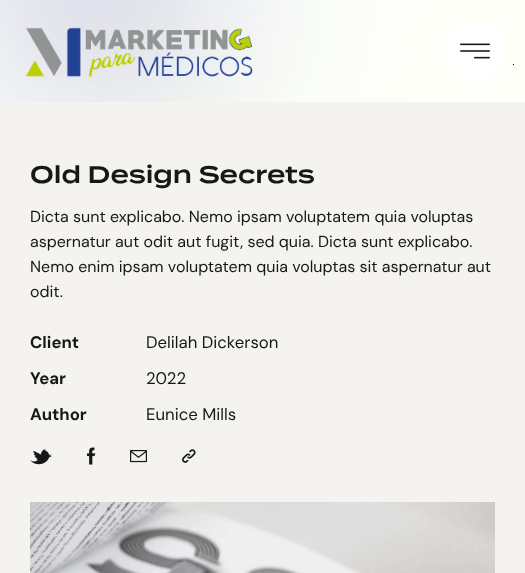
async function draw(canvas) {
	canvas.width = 525;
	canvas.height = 573;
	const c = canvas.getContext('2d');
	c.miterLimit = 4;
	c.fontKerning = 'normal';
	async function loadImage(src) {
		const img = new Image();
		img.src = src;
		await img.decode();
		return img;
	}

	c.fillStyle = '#f5f3ef';
	c.fillRect(0, 0, 525, 573);
	c.drawImage(await loadImage('img1.png'), 0, 0, 525, 102);
	c.drawImage(await loadImage('img2.png'), 25, 27, 228, 51);
	c.fillStyle = '#fff';
	c.beginPath();
	c.arc(475, 51, 30, 0, 2 * Math.PI);
	c.fill();
	c.drawImage(await loadImage('img3.png'), 460, 43, 30, 16);
	c.font = '600 24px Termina';
	c.fillStyle = '#171717';
	c.fillText('Old Design Secrets', 30, 183);
	c.font = '16px DM Sans';
	for (const [text, x, y] of [
		['Dicta sunt explicabo. Nemo ipsam voluptatem quia voluptas', 30, 222],
		['aspernatur aut odit aut fugit, sed quia. Dicta sunt explicabo.', 30, 247],
		['Nemo enim ipsam voluptatem quia voluptas sit aspernatur aut', 30, 272],
		['odit.', 30, 297],
	]) {
		c.fillText(text, x, y);
	}
	c.font = 'bold 16.75px DM Sans';
	c.fillText('Client', 30, 348);
	c.font = '16.75px DM Sans';
	c.fillText('Delilah Dickerson', 146, 348);
	c.font = 'bold 16.75px DM Sans';
	c.fillText('Year', 30, 384);
	c.font = '16.75px DM Sans';
	c.fillText('2022', 146, 384);
	c.font = 'bold 16.75px DM Sans';
	c.fillText('Author', 30, 420);
	c.font = '16.75px DM Sans';
	c.fillText('Eunice Mills', 146, 420);
	c.drawImage(await loadImage('img4.png'), 30, 449, 22, 16);
	c.drawImage(await loadImage('img5.png'), 87, 447, 9, 18);
	c.drawImage(await loadImage('img6.png'), 130, 450, 17, 13);
	c.drawImage(await loadImage('img7.png'), 182, 449, 14, 14);
	c.drawImage(await loadImage('img8.png'), 30, 502, 465, 71);
}

draw(document.querySelector('canvas'));
